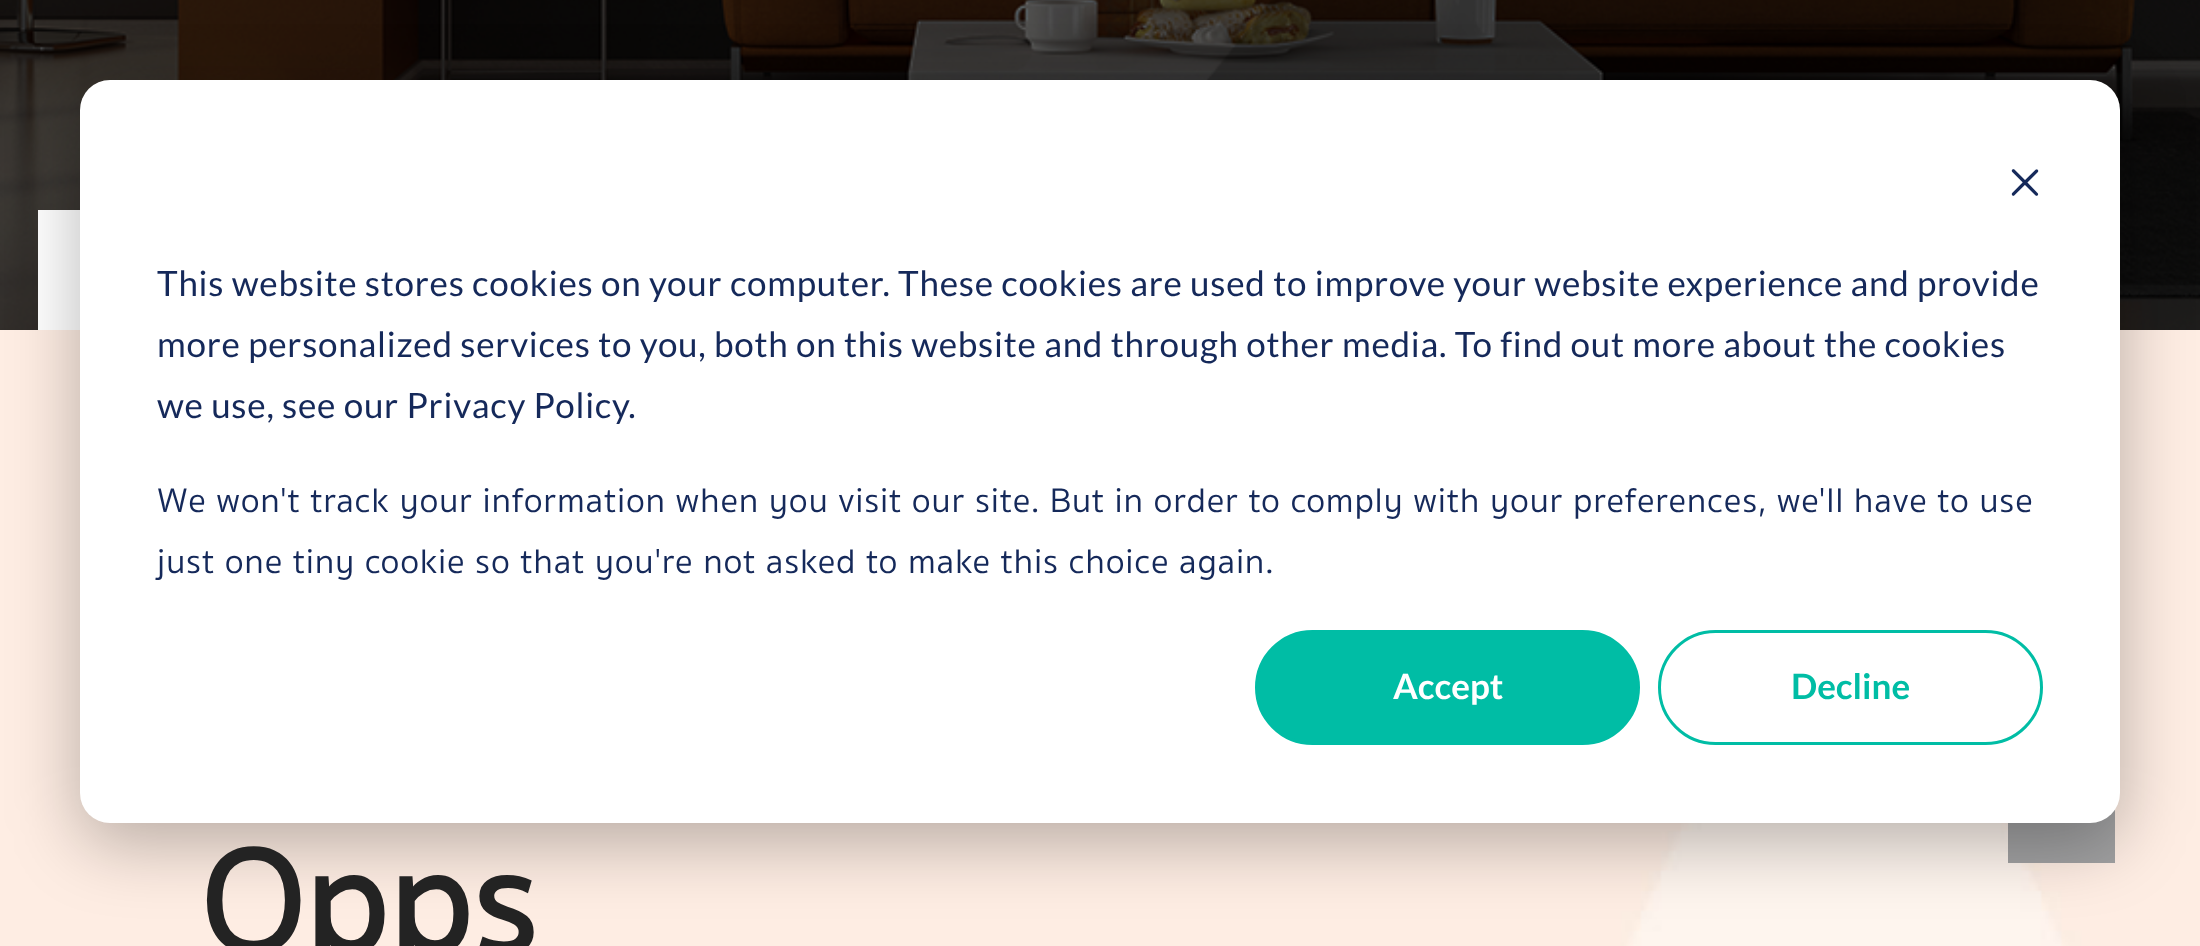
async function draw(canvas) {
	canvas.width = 2200;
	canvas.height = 946;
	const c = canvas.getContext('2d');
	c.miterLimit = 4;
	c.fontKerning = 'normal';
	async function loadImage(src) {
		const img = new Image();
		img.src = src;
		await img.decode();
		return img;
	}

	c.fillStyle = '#fff';
	c.fillRect(0, 0, 2200, 946);
	c.drawImage(await loadImage('img3.png'), 0, 330, 2200, 616);
	c.fillStyle = '#a1a1a2';
	c.fillRect(2008, 809, 107, 54);
	c.drawImage(await loadImage('img2.png'), 0, 0, 2200, 330);
	c.fillStyle = '#fff';
	c.fillRect(38, 210, 42, 120);
	c.fillStyle = '#00000047';
	c.filter = 'blur(35px)';
	c.beginPath();
	c.roundRect(80, 100, 2040, 743, 30);
	c.fill();
	c.filter = 'none';
	c.fillStyle = '#fff';
	c.beginPath();
	c.roundRect(80, 80, 2040, 743, 30);
	c.fill();
	c.drawImage(await loadImage('img1.png'), 2011, 169, 28, 27);
	c.letterSpacing = '0.75px';
	c.font = '35px Lato';
	c.fillStyle = '#15295a';
	for (const [text, x, y] of [
		['This website stores cookies on your computer. These cookies are used to improve your website experience and provide', 157, 296],
		['more personalized services to you, both on this website and through other media. To find out more about the cookies', 157, 357],
		['we use, see our Privacy Policy.', 157, 418],
	]) {
		c.fillText(text, x, y);
	}
	c.font = '35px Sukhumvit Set';
	c.fillText('We won\'t track your information when you visit our site. But in order to comply with your preferences, we\'ll have to use', 157, 512);
	c.fillText('just one tiny cookie so that you\'re not asked to make this choice again.', 157, 573);
	c.fillStyle = '#00bda5';
	c.beginPath();
	c.roundRect(1256.5, 631.5, 382, 112, 56);
	c.fill();
	c.strokeStyle = '#00bda5';
	c.lineWidth = 3;
	c.stroke();
	c.letterSpacing = '0px';
	c.font = 'bold 35px Lato';
	c.fillStyle = '#fff';
	c.fillText('Accept', 1393, 699);
	c.beginPath();
	c.roundRect(1659.5, 631.5, 382, 112, 56);
	c.stroke();
	c.fillStyle = '#00bda5';
	c.fillText('Decline', 1791, 699);
	c.letterSpacing = '0.75px';
	c.font = 'bold 150px Sukhumvit Set';
	c.fillStyle = '#232323';
	c.fillText('Opps', 200, 953);
}

draw(document.querySelector('canvas'));
